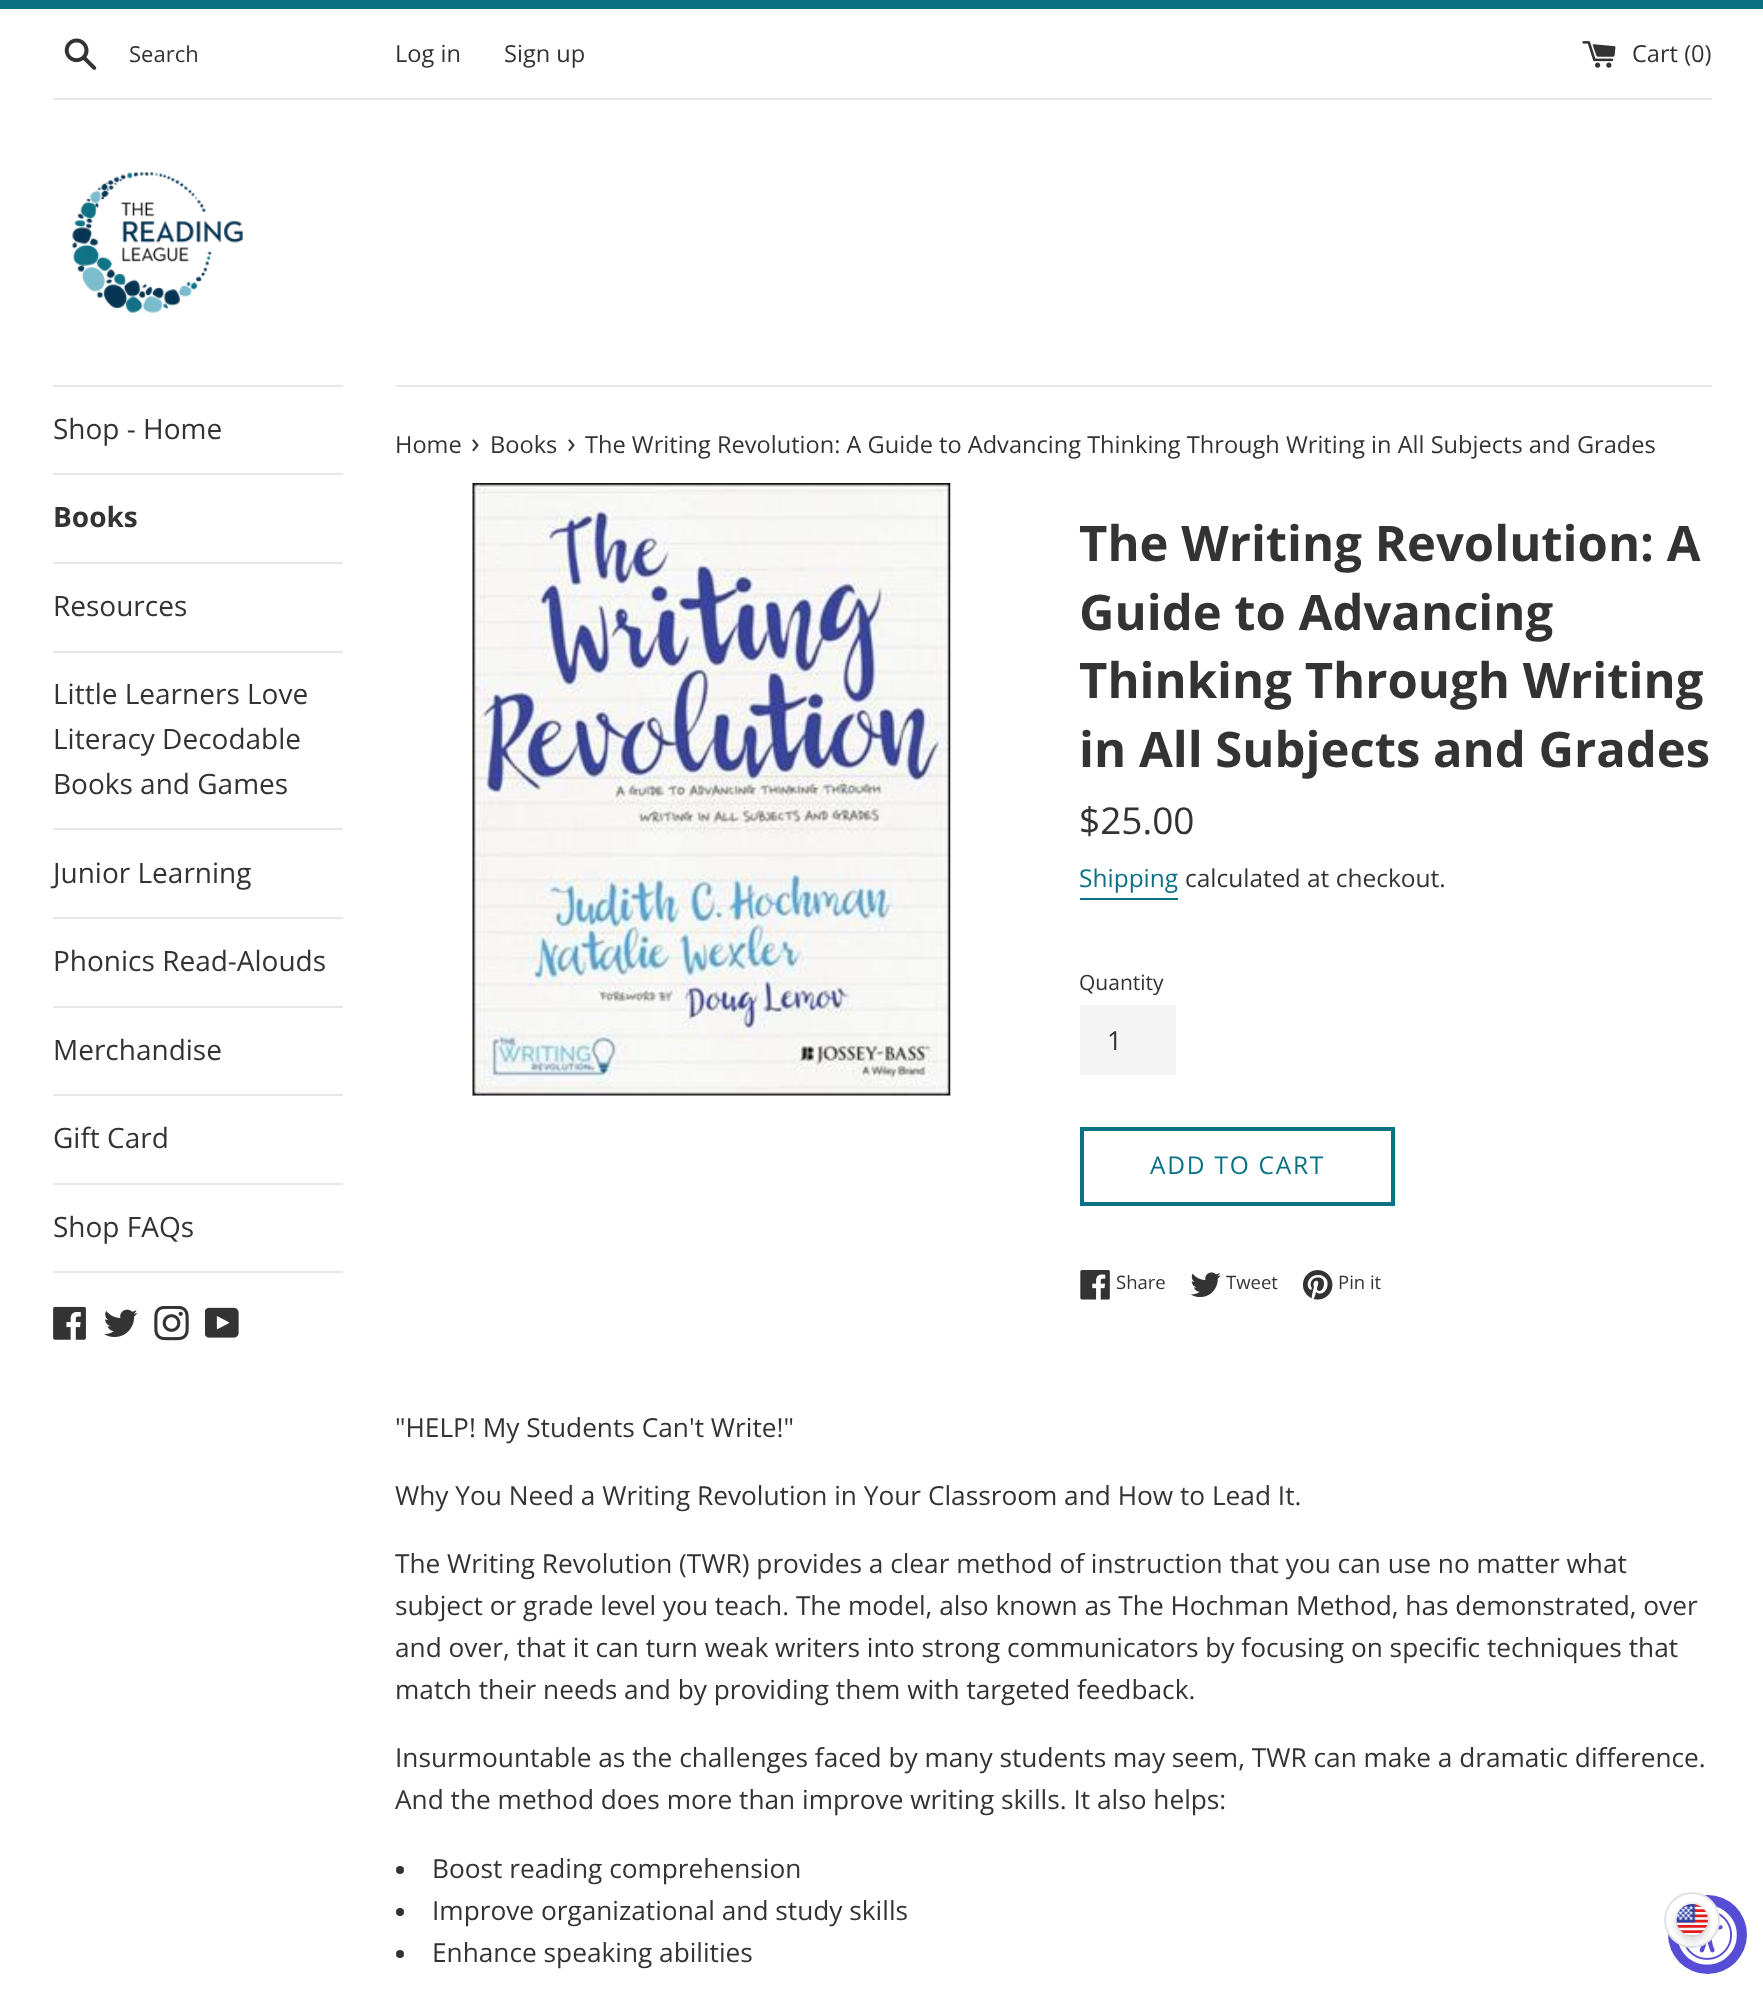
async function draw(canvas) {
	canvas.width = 1763;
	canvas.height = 1990;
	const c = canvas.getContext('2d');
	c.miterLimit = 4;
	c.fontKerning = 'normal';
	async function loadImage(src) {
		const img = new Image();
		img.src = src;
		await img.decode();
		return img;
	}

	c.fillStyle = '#fff';
	c.fillRect(0, 0, 1763, 1990);
	c.fillStyle = '#0c7185';
	c.fillRect(0, 0, 1763, 9);
	c.drawImage(await loadImage('img1.png'), 64, 38, 33, 32);
	c.font = '22px Open Sans';
	c.fillStyle = '#333';
	c.fillText('Search', 129, 62);
	c.font = '23.6px Open Sans';
	c.fillText('Log in', 395, 62);
	c.fillText('Sign up', 504, 62);
	c.drawImage(await loadImage('img2.png'), 1582, 41, 34, 27);
	c.fillText('Cart (0)', 1632, 62);
	c.fillStyle = '#e8e8e8';
	c.fillRect(53, 98, 1659, 2);
	c.drawImage(await loadImage('img3.png'), 72, 172, 171, 141);
	c.fillRect(53, 385, 290, 2);
	c.fillRect(53, 473, 290, 2);
	c.font = '28px Open Sans';
	c.fillStyle = '#333';
	c.fillText('Shop - Home', 53, 439);
	c.fillStyle = '#e8e8e8';
	c.fillRect(53, 562, 290, 2);
	c.font = 'bold 28px Open Sans';
	c.fillStyle = '#333';
	c.fillText('Books', 53, 527);
	c.fillStyle = '#e8e8e8';
	c.fillRect(53, 651, 290, 2);
	c.font = '28px Open Sans';
	c.fillStyle = '#333';
	c.fillText('Resources', 53, 616);
	c.fillStyle = '#e8e8e8';
	c.fillRect(53, 828, 290, 2);
	c.fillStyle = '#333';
	for (const [text, x, y] of [
		['Little Learners Love', 53, 704],
		['Literacy Decodable', 53, 749],
		['Books and Games', 53, 794],
	]) {
		c.fillText(text, x, y);
	}
	c.fillStyle = '#e8e8e8';
	c.fillRect(53, 917, 290, 2);
	c.fillStyle = '#333';
	c.fillText('Junior Learning', 53, 883);
	c.fillStyle = '#e8e8e8';
	c.fillRect(53, 1006, 290, 2);
	c.fillStyle = '#333';
	c.fillText('Phonics Read-Alouds', 53, 971);
	c.fillStyle = '#e8e8e8';
	c.fillRect(53, 1094, 290, 2);
	c.fillStyle = '#333';
	c.fillText('Merchandise', 53, 1060);
	c.fillStyle = '#e8e8e8';
	c.fillRect(53, 1183, 290, 2);
	c.fillStyle = '#333';
	c.fillText('Gift Card', 53, 1148);
	c.fillStyle = '#e8e8e8';
	c.fillRect(53, 1271, 290, 2);
	c.fillStyle = '#333';
	c.fillText('Shop FAQs', 53, 1237);
	c.drawImage(await loadImage('img4.png'), 53, 1306, 33, 34);
	c.drawImage(await loadImage('img5.png'), 104, 1309, 34, 28);
	c.drawImage(await loadImage('img6.png'), 154, 1306, 35, 35);
	c.drawImage(await loadImage('img7.png'), 205, 1307, 34, 31);
	c.fillStyle = '#e8e8e8';
	c.fillRect(396, 385, 1316, 2);
	c.font = '23.6px Open Sans';
	c.fillStyle = '#333';
	c.fillText('Home', 395, 453);
	c.font = '29px Open Sans';
	c.fillText('›', 471, 453);
	c.font = '23.6px Open Sans';
	c.fillText('Books', 490, 453);
	c.font = '29px Open Sans';
	c.fillText('›', 567, 453);
	c.font = '23.6px Open Sans';
	c.fillText('The Writing Revolution: A Guide to Advancing Thinking Through Writing in All Subjects and Grades', 585, 453);
	c.drawImage(await loadImage('img8.png'), 472, 483, 479, 613);
	c.font = 'bold 49px Open Sans';
	for (const [text, x, y] of [
		['The Writing Revolution: A', 1079, 561],
		['Guide to Advancing', 1079, 630],
		['Thinking Through Writing', 1079, 698],
		['in All Subjects and Grades', 1079, 767],
	]) {
		c.fillText(text, x, y);
	}
	c.font = '37px Open Sans';
	c.fillText('$25.00', 1079, 834);
	c.font = '24.5px Open Sans';
	c.fillStyle = '#0c7185';
	c.fillText('Shipping', 1079, 887);
	c.fillRect(1080, 898, 98, 2);
	c.fillStyle = '#333';
	c.fillText('calculated at checkout.', 1185, 887);
	c.font = '21px Open Sans';
	c.fillText('Quantity', 1079, 990);
	c.fillStyle = '#f4f4f4';
	c.fillRect(1080, 1005, 96, 70);
	c.font = '26.25px Open Sans';
	c.fillStyle = '#333';
	c.fillText('1', 1107, 1050);
	c.strokeStyle = '#0c7185';
	c.lineWidth = 4;
	c.strokeRect(1082, 1129, 311, 75);
	c.letterSpacing = '1.75px';
	c.font = '24.5px Open Sans';
	c.fillStyle = '#0c7185';
	c.fillText('ADD TO CART', 1150, 1174);
	c.drawImage(await loadImage('img9.png'), 1080, 1270, 30, 30);
	c.letterSpacing = '0px';
	c.font = '18.5px Open Sans';
	c.fillStyle = '#333';
	c.fillText('Share', 1116, 1289);
	c.drawImage(await loadImage('img10.png'), 1190, 1272, 31, 26);
	c.fillText('Tweet', 1226, 1289);
	c.drawImage(await loadImage('img11.png'), 1302, 1270, 31, 30);
	c.fillText('Pin it', 1338, 1289);
	c.font = '26.25px Open Sans';
	for (const [text, x, y] of [
		['"HELP! My Students Can\'t Write!"', 395, 1437],
		['Why You Need a Writing Revolution in Your Classroom and How to Lead It.', 395, 1505],
		['The Writing Revolution (TWR) provides a clear method of instruction that you can use no matter what', 395, 1573],
		['subject or grade level you teach. The model, also known as The Hochman Method, has demonstrated, over', 395, 1615],
		['and over, that it can turn weak writers into strong communicators by focusing on specific techniques that', 395, 1657],
		['match their needs and by providing them with targeted feedback.', 395, 1699],
		['Insurmountable as the challenges faced by many students may seem, TWR can make a dramatic difference.', 395, 1767],
		['And the method does more than improve writing skills. It also helps:', 395, 1809],
	]) {
		c.fillText(text, x, y);
	}
	c.beginPath();
	c.arc(400, 1870, 4, 0, 2 * Math.PI);
	c.fill();
	c.fillText('Boost reading comprehension', 432, 1878);
	c.beginPath();
	c.arc(400, 1912, 4, 0, 2 * Math.PI);
	c.fill();
	c.fillText('Improve organizational and study skills', 432, 1920);
	c.beginPath();
	c.arc(400, 1954, 4, 0, 2 * Math.PI);
	c.fill();
	c.fillText('Enhance speaking abilities', 432, 1962);
	c.fillStyle = '#574cd5';
	c.beginPath();
	c.arc(1707.5, 1934.5, 39.5, 0, 2 * Math.PI);
	c.fill();
	c.drawImage(await loadImage('img13.png'), 1678, 1906, 59, 59);
	c.fillStyle = '#fff';
	c.beginPath();
	c.arc(1692, 1920, 27, 0, 2 * Math.PI);
	c.fill();
	c.strokeStyle = '#dfe2e7';
	c.lineWidth = 2;
	c.stroke();
	c.beginPath();
	c.arc(1692.5, 1919.5, 16.5, 0, 2 * Math.PI);
	c.strokeStyle = '#f1f1f2';
	c.stroke();
	c.fillStyle = '#0a0a0b1a';
	c.filter = 'blur(5px)';
	c.beginPath();
	c.roundRect(1677, 1911, 31, 32, 15.5);
	c.fill();
	c.filter = 'none';
	c.fillStyle = '#0a0a0b0f';
	c.filter = 'blur(3.5px)';
	c.beginPath();
	c.roundRect(1677, 1908, 31, 31, 15.5);
	c.fill();
	c.filter = 'none';
	c.drawImage(await loadImage('img12.png'), 1676, 1904, 32, 31);
}

draw(document.querySelector('canvas'));
